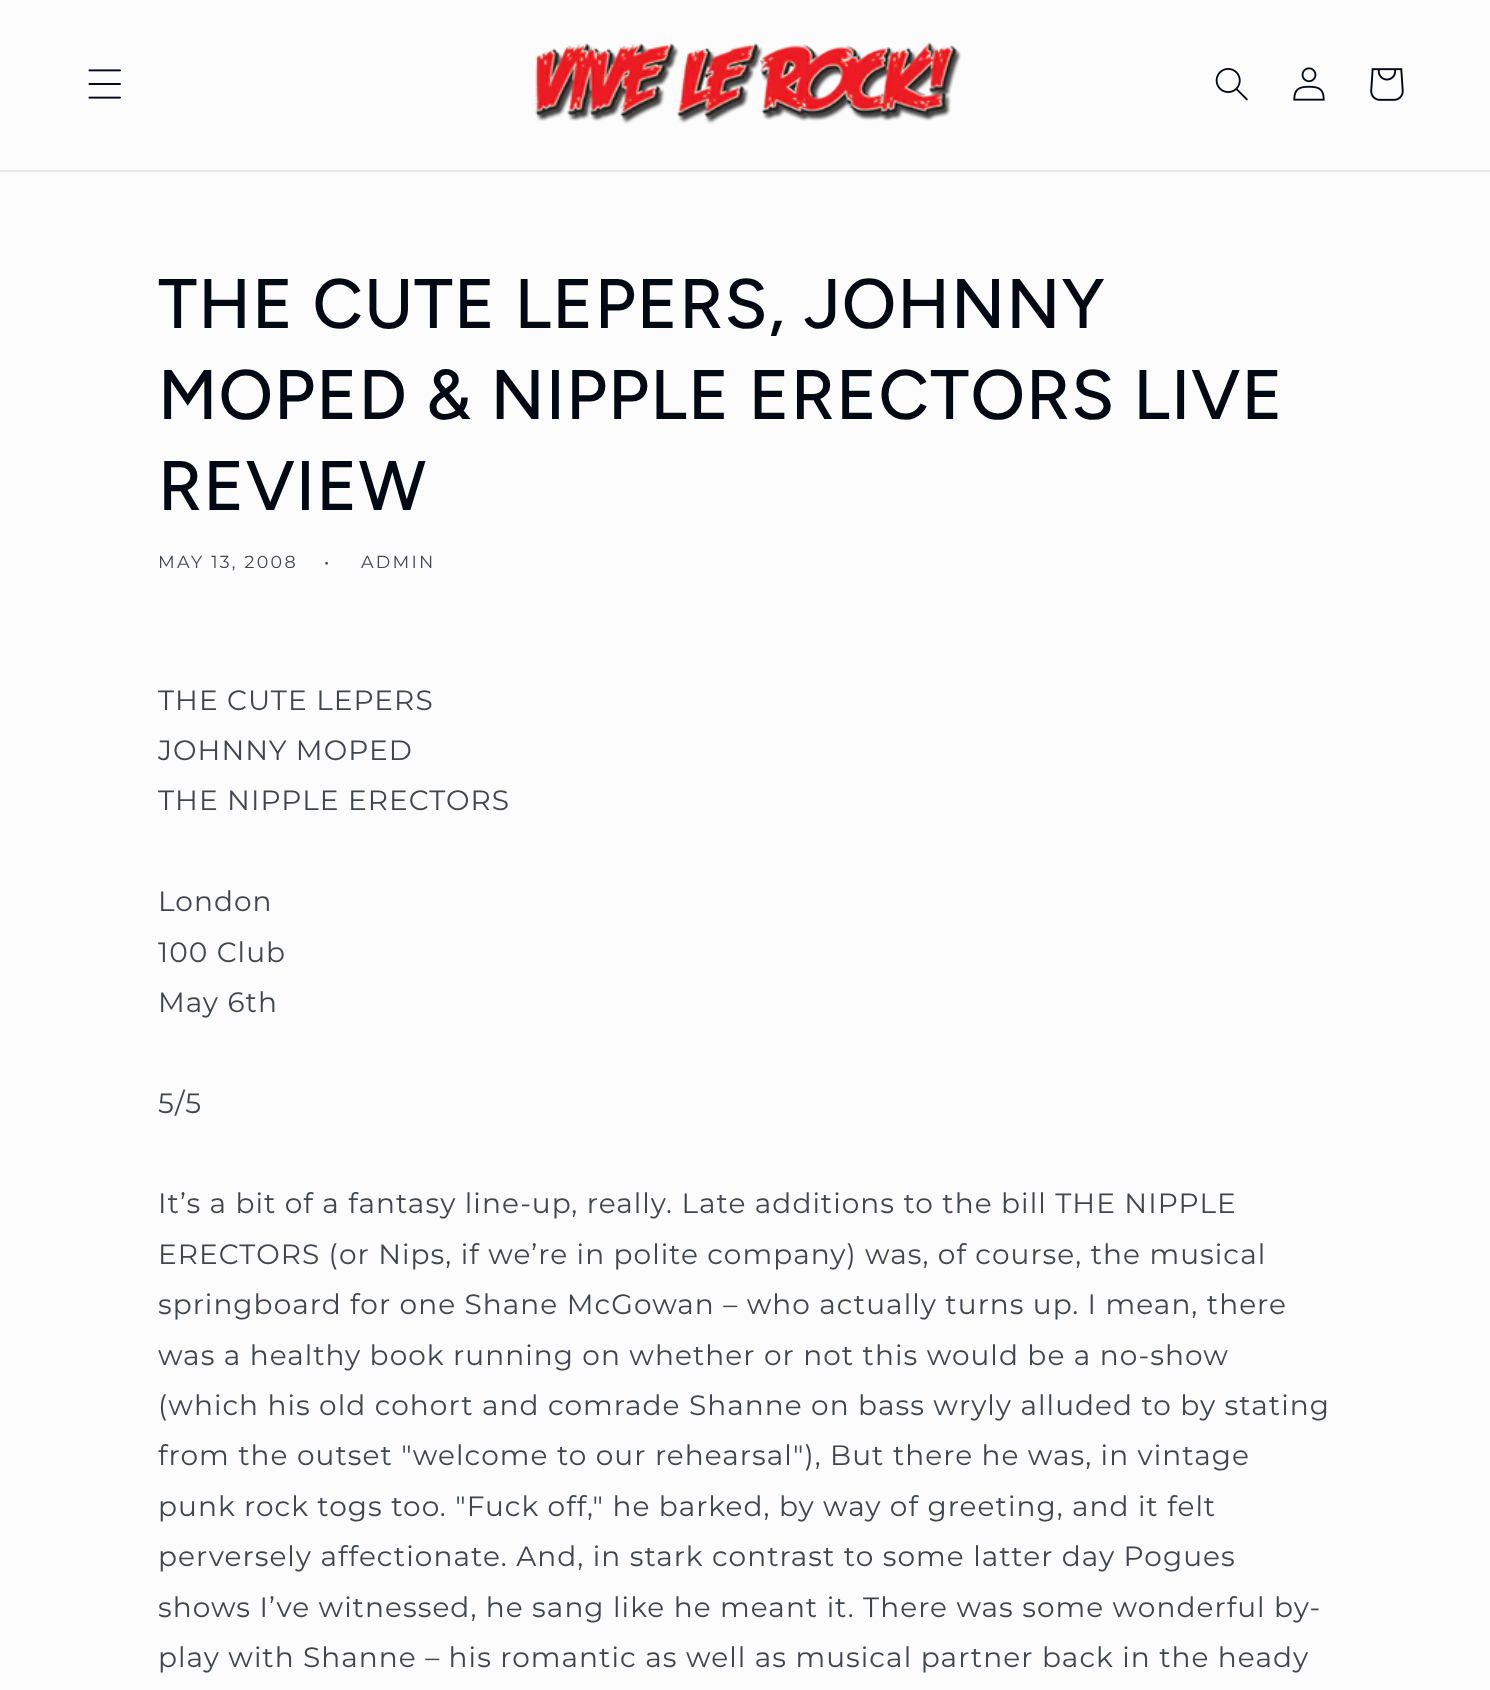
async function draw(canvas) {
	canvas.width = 1490;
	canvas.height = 1690;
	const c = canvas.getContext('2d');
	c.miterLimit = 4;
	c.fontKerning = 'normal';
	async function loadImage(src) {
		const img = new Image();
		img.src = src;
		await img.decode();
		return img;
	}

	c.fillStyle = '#fcfcfc';
	c.fillRect(0, 0, 1490, 1690);
	c.fillStyle = '#e8e9e9';
	c.fillRect(0, 170, 1490, 2);
	c.drawImage(await loadImage('img1.png'), 88, 69, 33, 30);
	c.drawImage(await loadImage('img2.png'), 534, 42, 428, 82);
	c.drawImage(await loadImage('img3.png'), 1215, 68, 33, 33);
	c.drawImage(await loadImage('img4.png'), 1293, 67, 32, 34);
	c.drawImage(await loadImage('img5.png'), 1370, 68, 34, 33);
	c.letterSpacing = '1.05px';
	c.font = '500 70px Figtree';
	c.fillStyle = '#020912';
	for (const [text, x, y] of [
		['THE CUTE LEPERS, JOHNNY', 158, 328],
		['MOPED & NIPPLE ERECTORS LIVE', 158, 419],
		['REVIEW', 158, 510],
	]) {
		c.fillText(text, x, y);
	}
	c.letterSpacing = '2.25px';
	c.font = '17.5px Montserrat';
	c.fillStyle = '#41464d';
	for (const [text, x, y] of [
		['MAY 13, 2008', 158, 568],
		['•', 324, 568],
		['ADMIN', 361, 568],
	]) {
		c.fillText(text, x, y);
	}
	c.letterSpacing = '1.05px';
	c.font = '28px Montserrat';
	for (const [text, x, y] of [
		['THE CUTE LEPERS', 158, 710],
		['JOHNNY MOPED', 158, 760],
		['THE NIPPLE ERECTORS', 158, 810],
		['London', 158, 911],
		['100 Club', 158, 962],
		['May 6th', 158, 1012],
		['5/5', 158, 1113],
		['It’s a bit of a fantasy line-up, really. Late additions to the bill THE NIPPLE', 158, 1213],
		['ERECTORS (or Nips, if we’re in polite company) was, of course, the musical', 158, 1264],
		['springboard for one Shane McGowan – who actually turns up. I mean, there', 158, 1314],
		['was a healthy book running on whether or not this would be a no-show', 158, 1365],
		['(which his old cohort and comrade Shanne on bass wryly alluded to by stating', 158, 1415],
		['from the outset "welcome to our rehearsal"), But there he was, in vintage', 158, 1465],
		['punk rock togs too. "Fuck off," he barked, by way of greeting, and it felt', 158, 1516],
		['perversely affectionate. And, in stark contrast to some latter day Pogues', 158, 1566],
		['shows I’ve witnessed, he sang like he meant it. There was some wonderful by-', 158, 1617],
		['play with Shanne – his romantic as well as musical partner back in the heady', 158, 1667],
	]) {
		c.fillText(text, x, y);
	}
}

draw(document.querySelector('canvas'));
